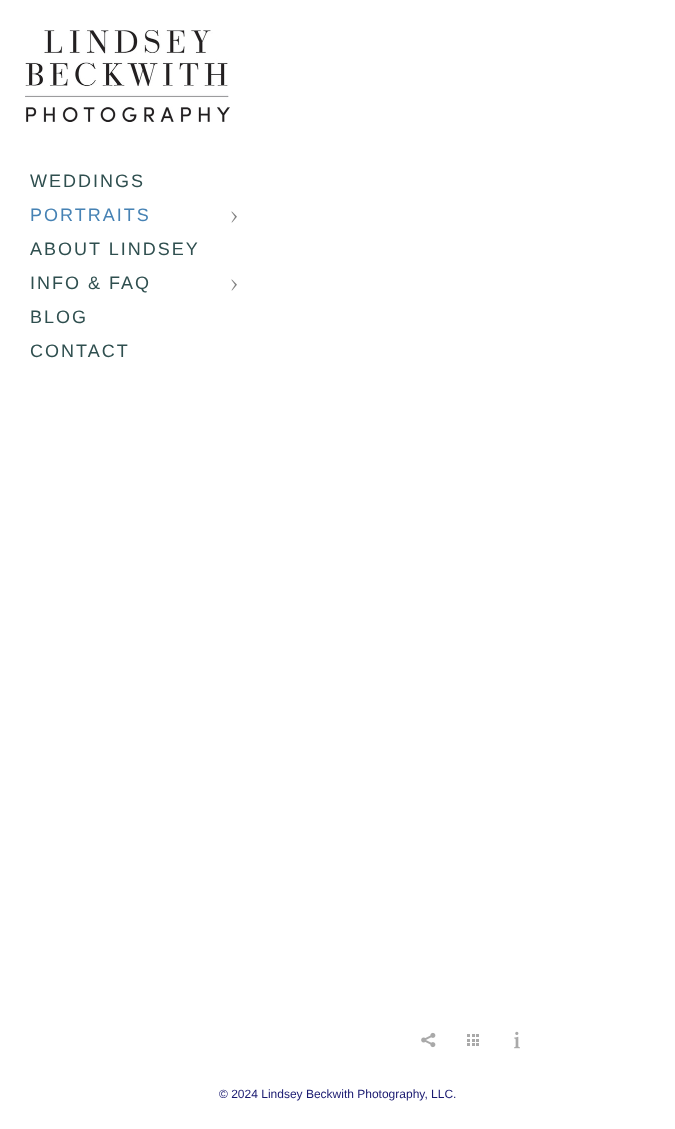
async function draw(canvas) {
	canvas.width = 675;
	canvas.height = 1129;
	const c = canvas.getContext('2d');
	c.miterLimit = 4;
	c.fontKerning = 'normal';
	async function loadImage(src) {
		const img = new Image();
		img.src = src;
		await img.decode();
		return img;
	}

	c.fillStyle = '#fff';
	c.fillRect(0, 0, 675, 1129);
	c.drawImage(await loadImage('img1.png'), 25, 30, 205, 92);
	c.letterSpacing = '2px';
	c.font = '18px Liberation Sans';
	c.fillStyle = '#2f4f4f';
	c.fillText('WEDDINGS', 30, 187);
	c.fillStyle = '#4682b4';
	c.fillText('PORTRAITS', 30, 221);
	c.drawImage(await loadImage('img2.png'), 231, 211, 6, 12);
	c.fillStyle = '#2f4f4f';
	c.fillText('ABOUT LINDSEY', 30, 255);
	c.fillText('INFO & FAQ', 30, 289);
	c.drawImage(await loadImage('img2.png'), 231, 279, 6, 12);
	c.fillText('BLOG', 30, 323);
	c.fillText('CONTACT', 30, 357);
	c.drawImage(await loadImage('img3.png'), 421, 1032, 15, 16);
	c.drawImage(await loadImage('img4.png'), 467, 1034, 12, 12);
	c.drawImage(await loadImage('img5.png'), 514, 1031, 6, 18);
	c.letterSpacing = '0px';
	c.font = '12px Liberation Sans';
	c.fillStyle = '#191970';
	c.fillText('© 2024 Lindsey Beckwith Photography, LLC.', 219, 1098);
}

draw(document.querySelector('canvas'));
